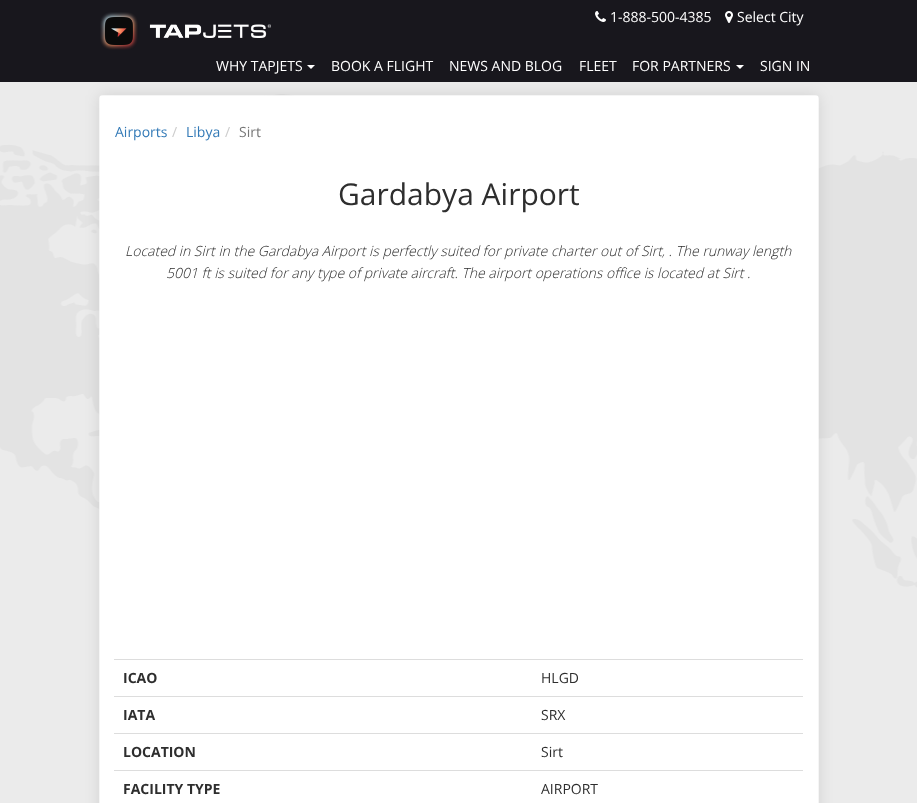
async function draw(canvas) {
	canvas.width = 917;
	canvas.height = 803;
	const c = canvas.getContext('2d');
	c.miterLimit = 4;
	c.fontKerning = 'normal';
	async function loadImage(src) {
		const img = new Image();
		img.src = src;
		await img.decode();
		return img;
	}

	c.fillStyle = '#ebebeb';
	c.fillRect(0, 0, 917, 803);
	c.drawImage(await loadImage('img4.png'), 0, 94, 917, 494);
	c.fillStyle = '#0000001a';
	c.filter = 'blur(7.5px)';
	c.beginPath();
	c.roundRect(99, 95, 720, 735, 4);
	c.fill();
	c.filter = 'none';
	c.fillStyle = '#18171d';
	c.fillRect(0, 0, 917, 82);
	c.drawImage(await loadImage('img1.png'), 100, 12, 171, 38);
	c.drawImage(await loadImage('img2.png'), 595, 11, 11, 11);
	c.font = '14px Open Sans';
	c.fillStyle = '#fff';
	c.fillText('1-888-500-4385', 610, 22);
	c.drawImage(await loadImage('img3.png'), 725, 11, 8, 12);
	c.fillText('Select City', 737, 22);
	c.fillText('WHY TAPJETS', 216, 71);
	c.beginPath();
	c.moveTo(307, 65);
	c.lineTo(315, 65);
	c.lineTo(311, 69);
	c.closePath();
	c.fill();
	for (const [text, x, y] of [
		['BOOK A FLIGHT', 331, 71],
		['NEWS AND BLOG', 449, 71],
		['FLEET', 579, 71],
		['FOR PARTNERS', 632, 71],
	]) {
		c.fillText(text, x, y);
	}
	c.beginPath();
	c.moveTo(736, 65);
	c.lineTo(744, 65);
	c.lineTo(740, 69);
	c.closePath();
	c.fill();
	c.fillText('SIGN IN', 760, 71);
	c.fillStyle = '#ffffffb3';
	c.beginPath();
	c.roundRect(99, 95, 720, 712, 4);
	c.fill();
	c.fillStyle = '#fff';
	c.fillRect(100, 96, 718, 707);
	c.fillStyle = '#337ab7';
	c.fillText('Airports', 115, 137);
	c.fillStyle = '#ccc';
	c.fillText('/', 172, 137);
	c.fillStyle = '#337ab7';
	c.fillText('Libya', 186, 137);
	c.fillStyle = '#ccc';
	c.fillText('/', 225, 137);
	c.fillStyle = '#777';
	c.fillText('Sirt', 239, 137);
	c.font = '30px Open Sans';
	c.fillStyle = '#2e2e2e';
	c.fillText('Gardabya Airport', 338, 205);
	c.font = 'italic 300 14px Open Sans';
	c.fillText('Located in Sirt in the Gardabya Airport is perfectly suited for private charter out of Sirt, . The runway length', 125, 256);
	c.fillText('5001 ft is suited for any type of private aircraft. The airport operations office is located at Sirt .', 166, 278);
	c.font = 'bold 14px Open Sans';
	c.fillText('ICAO', 123, 683);
	c.fillStyle = '#ddd';
	c.fillRect(114, 659, 689, 1);
	c.font = '14px Open Sans';
	c.fillStyle = '#2e2e2e';
	c.fillText('HLGD', 541, 683);
	c.font = 'bold 14px Open Sans';
	c.fillText('IATA', 123, 720);
	c.fillStyle = '#ddd';
	c.fillRect(114, 696, 689, 1);
	c.font = '14px Open Sans';
	c.fillStyle = '#2e2e2e';
	c.fillText('SRX', 541, 720);
	c.font = 'bold 14px Open Sans';
	c.fillText('LOCATION', 123, 757);
	c.fillStyle = '#ddd';
	c.fillRect(114, 733, 689, 1);
	c.font = '14px Open Sans';
	c.fillStyle = '#2e2e2e';
	c.fillText('Sirt', 541, 757);
	c.font = 'bold 14px Open Sans';
	c.fillText('FACILITY TYPE', 123, 794);
	c.fillStyle = '#ddd';
	c.fillRect(114, 770, 689, 1);
	c.font = '14px Open Sans';
	c.fillStyle = '#2e2e2e';
	c.fillText('AIRPORT', 541, 794);
}

draw(document.querySelector('canvas'));
